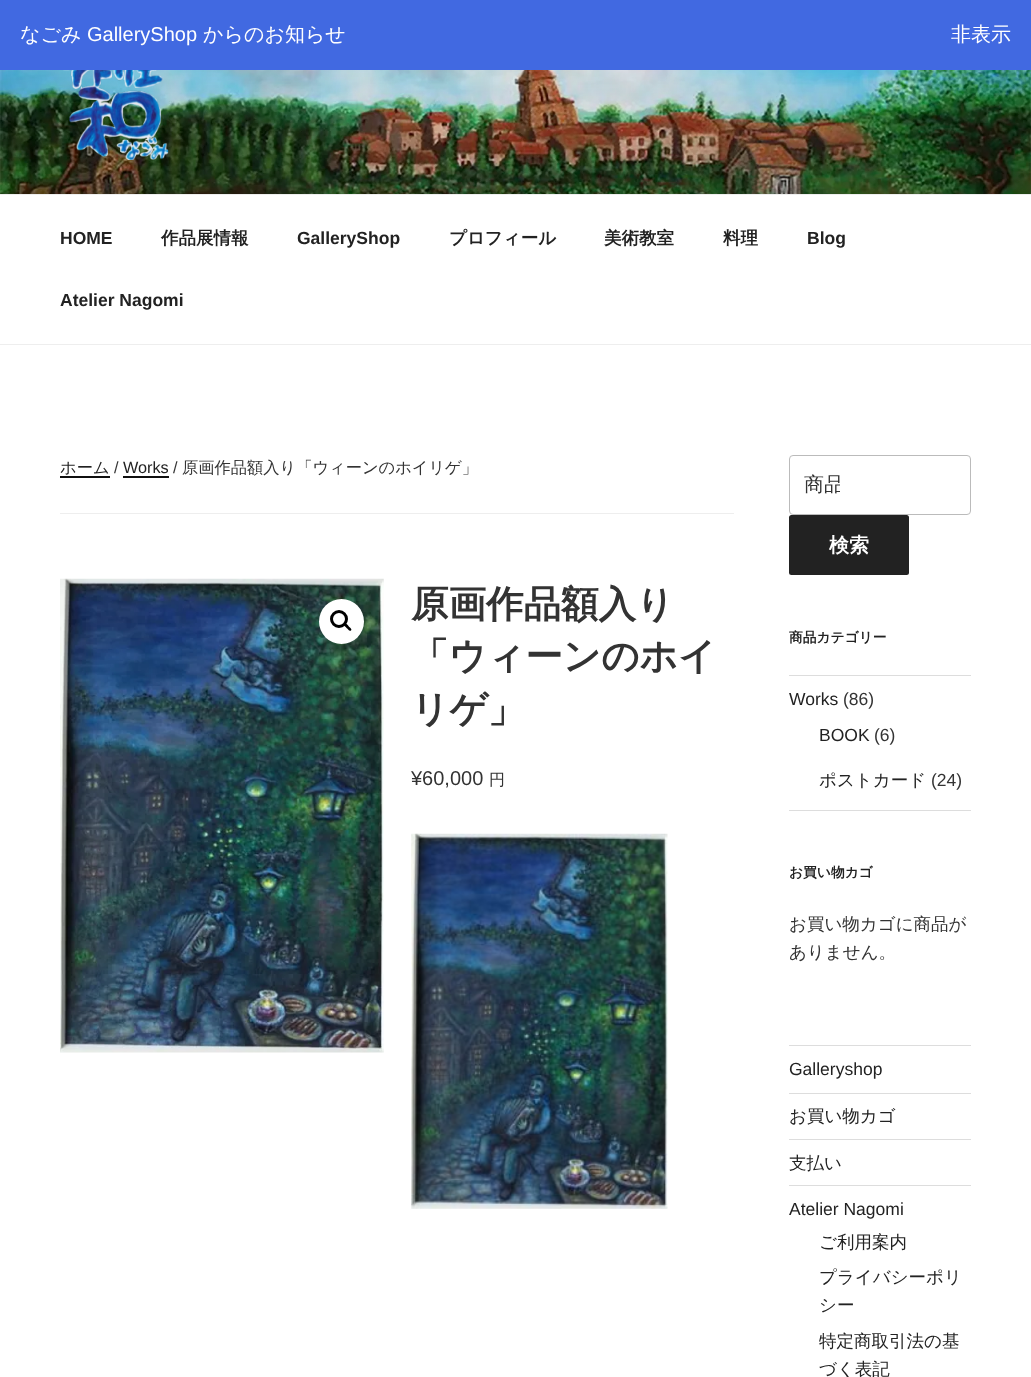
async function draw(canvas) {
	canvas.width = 1031;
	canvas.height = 1377;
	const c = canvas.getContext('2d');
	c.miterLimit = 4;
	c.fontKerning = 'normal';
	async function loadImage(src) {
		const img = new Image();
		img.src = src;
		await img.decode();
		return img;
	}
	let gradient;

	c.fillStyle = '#fff';
	c.fillRect(0, 0, 1031, 1377);
	c.fillStyle = '#4169e1';
	c.fillRect(0, 0, 1031, 70);
	c.font = '500 20px WenQuanYi Zen Hei';
	c.fillStyle = '#fff';
	c.fillText('なごみ', 20, 41);
	c.font = '20px Liberation Sans';
	c.fillText('GalleryShop', 87, 41);
	c.font = '500 20px WenQuanYi Zen Hei';
	c.fillText('からのお知らせ', 203, 41);
	c.fillText('非表示', 951, 41);
	c.drawImage(await loadImage('img1.png'), 0, 70, 1031, 124);
	gradient = c.createLinearGradient(516, 0, 516, 345);
	gradient.addColorStop(0, '#00000000');
	gradient.addColorStop(0.75, '#0000004d');
	gradient.addColorStop(1, '#0000004d');
	c.fillStyle = gradient;
	c.fillRect(0, 70, 1031, 124);
	c.drawImage(await loadImage('img2.png'), 62, 70, 107, 90);
	c.fillStyle = '#eee';
	c.fillRect(0, 194, 1031, 1);
	c.fillRect(0, 344, 1031, 1);
	c.font = 'bold 17.5px Liberation Sans';
	c.fillStyle = '#222';
	c.fillText('HOME', 60, 244);
	c.font = 'bold 17.5px WenQuanYi Zen Hei';
	c.fillText('作品展情報', 161, 244);
	c.font = 'bold 17.5px Liberation Sans';
	c.fillText('GalleryShop', 297, 244);
	c.font = 'bold 17.5px WenQuanYi Zen Hei';
	for (const [text, x, y] of [
		['プロフィール', 449, 244],
		['美術教室', 604, 244],
		['料理', 723, 244],
	]) {
		c.fillText(text, x, y);
	}
	c.font = 'bold 17.5px Liberation Sans';
	c.fillText('Blog', 807, 244);
	c.fillText('Atelier Nagomi', 60, 306);
	c.fillStyle = '#eee';
	c.fillRect(60, 513, 674, 1);
	c.font = '500 16.25px WenQuanYi Zen Hei';
	c.fillStyle = '#222';
	c.fillText('ホーム', 60, 473);
	c.fillStyle = '#0f0f0f';
	c.fillRect(60, 476, 50, 2);
	c.font = '16.25px Liberation Sans';
	c.fillStyle = '#333';
	c.fillText('/', 114, 473);
	c.fillStyle = '#222';
	c.fillText('Works', 123, 473);
	c.fillStyle = '#0f0f0f';
	c.beginPath();
	c.moveTo(123, 476);
	c.lineTo(123, 478);
	c.lineTo(169, 478);
	c.lineTo(169, 459);
	c.lineTo(169, 476);
	c.closePath();
	c.fill();
	c.fillStyle = '#333';
	c.fillText('/', 173, 473);
	c.font = '500 16.25px WenQuanYi Zen Hei';
	c.fillText('原画作品額入り「ウィーンのホイリゲ」', 182, 473);
	c.drawImage(await loadImage('img3.png'), 60, 578, 324, 475);
	c.fillStyle = '#fff';
	c.beginPath();
	c.arc(341.5, 621.5, 22.5, 0, 2 * Math.PI);
	c.fill();
	c.beginPath();
	c.arc(339, 619, 7.5, 0, 2 * Math.PI);
	c.strokeStyle = '#000';
	c.lineWidth = 3;
	c.stroke();
	c.fillStyle = '#000';
	c.beginPath();
	c.moveTo(344, 623.5);
	c.bezierCurveTo(345.5, 622, 347.5, 625, 348.5, 626);
	c.bezierCurveTo(349, 627, 352.5, 629, 351, 630.5);
	c.bezierCurveTo(349.5, 632, 347.5, 628.5, 346.5, 628);
	c.bezierCurveTo(346, 627, 342.5, 625, 344, 623.5);
	c.closePath();
	c.fill();
	c.font = 'bold 37.5px WenQuanYi Zen Hei';
	c.fillStyle = '#333';
	for (const [text, x, y] of [
		['原画作品額入り', 411, 617],
		['「ウィーンのホイ', 411, 669],
		['リゲ」', 411, 722],
	]) {
		c.fillText(text, x, y);
	}
	c.font = '20px Liberation Sans';
	c.fillText('¥60,000', 411, 785);
	c.font = '500 16px WenQuanYi Zen Hei';
	c.fillText('円', 489, 785);
	c.drawImage(await loadImage('img4.png'), 411, 833, 257, 376);
	c.beginPath();
	c.roundRect(789.5, 455.5, 181, 59, 3.5);
	c.strokeStyle = '#bbb';
	c.lineWidth = 1;
	c.stroke();
	c.save();
	c.beginPath();
	c.rect(804, 473, 36, 26);
	c.clip();
	c.font = '500 20px WenQuanYi Zen Hei';
	c.fillText('商品', 804, 491);
	c.restore();
	c.fillStyle = '#222';
	c.beginPath();
	c.roundRect(789, 515, 120, 60, 2.5);
	c.fill();
	c.font = 'bold 20px WenQuanYi Zen Hei';
	c.fillStyle = '#fff';
	c.fillText('検索', 829, 552);
	c.font = 'bold 13.75px WenQuanYi Zen Hei';
	c.fillStyle = '#222';
	c.fillText('商品カテゴリー', 789, 642);
	c.fillStyle = '#ddd';
	c.fillRect(789, 675, 182, 1);
	c.fillRect(789, 810, 182, 1);
	c.font = '17.5px Liberation Sans';
	c.fillStyle = '#222';
	c.fillText('Works', 789, 705);
	c.fillStyle = '#333';
	c.fillText('(86)', 843, 705);
	c.fillStyle = '#222';
	c.fillText('BOOK', 819, 741);
	c.fillStyle = '#333';
	c.fillText('(6)', 874, 741);
	c.font = '500 17.5px WenQuanYi Zen Hei';
	c.fillStyle = '#222';
	c.fillText('ポストカード', 819, 786);
	c.font = '17.5px Liberation Sans';
	c.fillStyle = '#333';
	c.fillText('(24)', 931, 786);
	c.font = 'bold 13.75px WenQuanYi Zen Hei';
	c.fillStyle = '#222';
	c.fillText('お買い物カゴ', 789, 877);
	c.font = '500 17.5px WenQuanYi Zen Hei';
	c.fillStyle = '#333';
	c.fillText('お買い物カゴに商品が', 789, 930);
	c.fillText('ありません。', 789, 958);
	c.fillStyle = '#ddd';
	c.fillRect(789, 1045, 182, 1);
	c.fillRect(789, 1093, 182, 1);
	c.font = '17.5px Liberation Sans';
	c.fillStyle = '#222';
	c.fillText('Galleryshop', 789, 1075);
	c.fillStyle = '#ddd';
	c.fillRect(789, 1139, 182, 1);
	c.font = '500 17.5px WenQuanYi Zen Hei';
	c.fillStyle = '#222';
	c.fillText('お買い物カゴ', 789, 1122);
	c.fillStyle = '#ddd';
	c.fillRect(789, 1185, 182, 1);
	c.fillStyle = '#222';
	c.fillText('支払い', 789, 1169);
	c.font = '17.5px Liberation Sans';
	c.fillText('Atelier Nagomi', 789, 1215);
	c.font = '500 17.5px WenQuanYi Zen Hei';
	for (const [text, x, y] of [
		['ご利用案内', 819, 1248],
		['プライバシーポリ', 819, 1283],
		['シー', 819, 1311],
		['特定商取引法の基', 819, 1347],
		['づく表記', 819, 1375],
	]) {
		c.fillText(text, x, y);
	}
}

draw(document.querySelector('canvas'));
